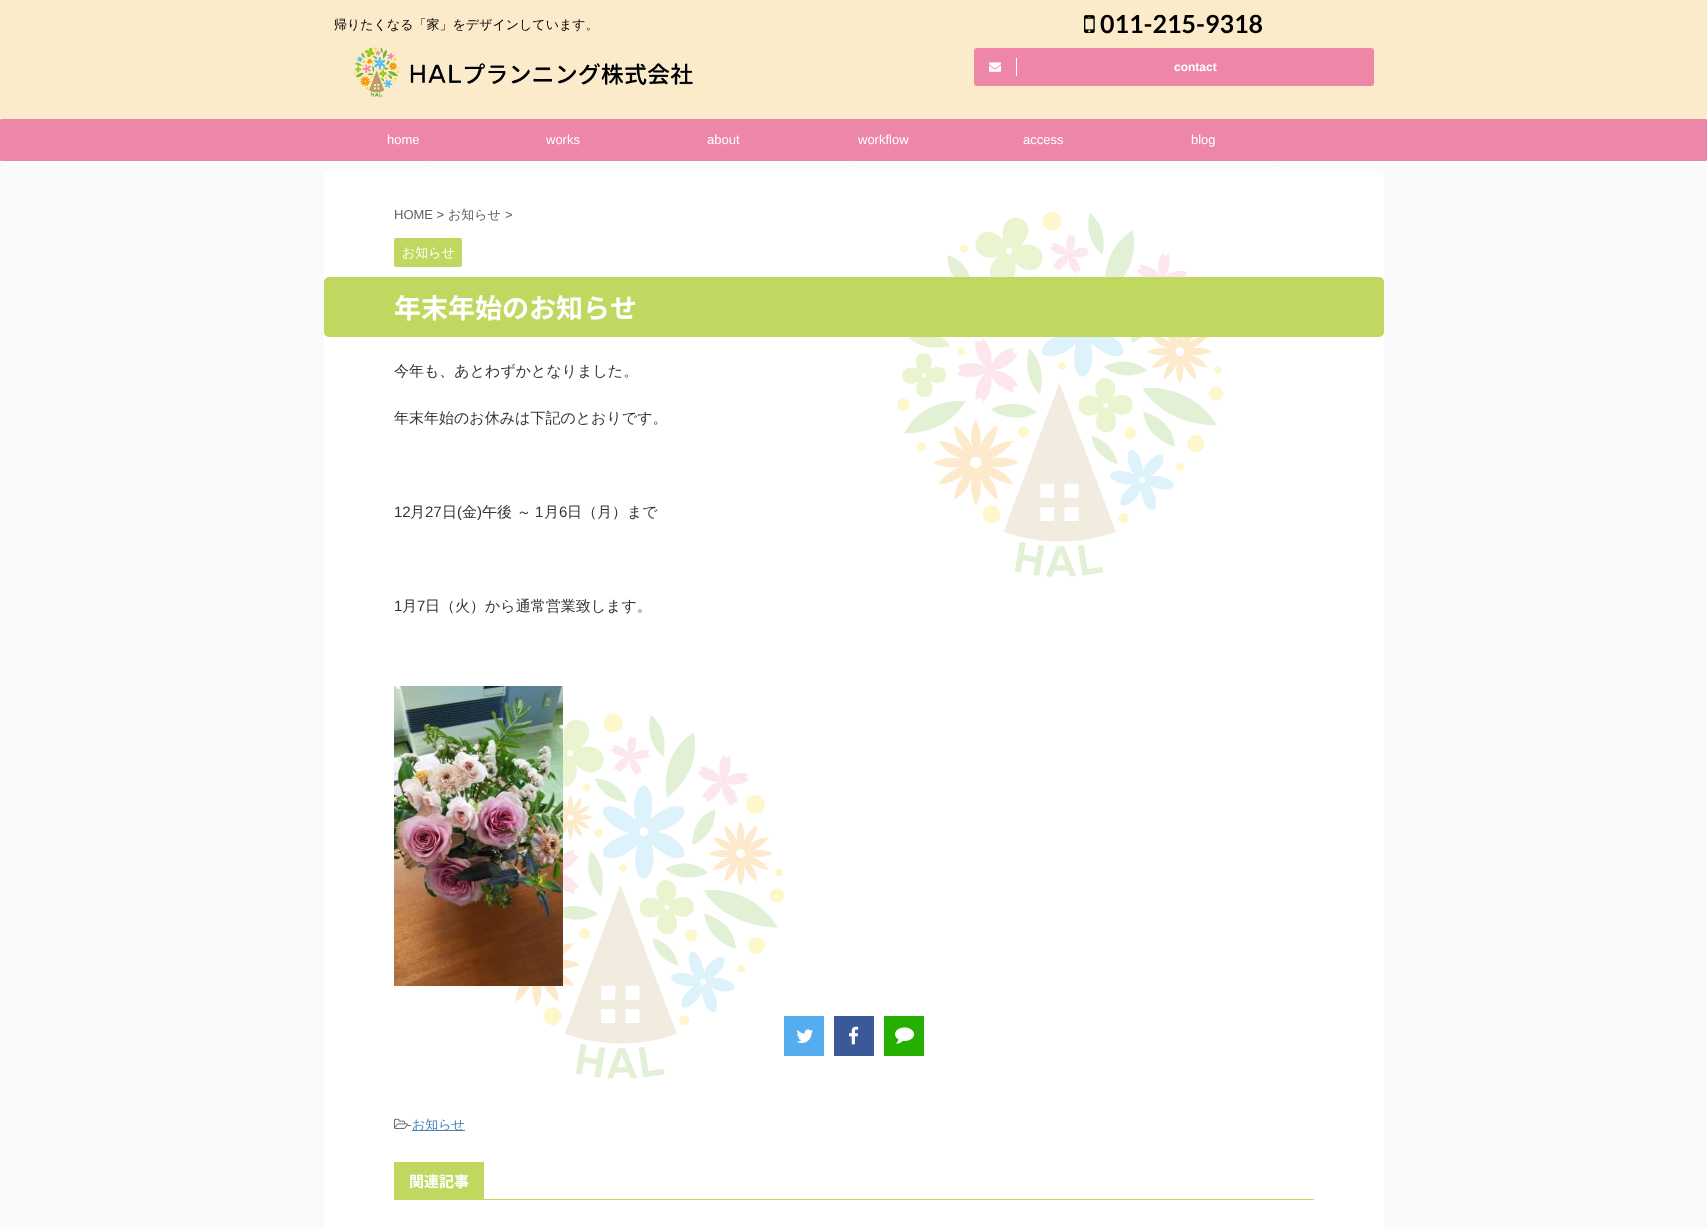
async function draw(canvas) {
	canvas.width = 1707;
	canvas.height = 1229;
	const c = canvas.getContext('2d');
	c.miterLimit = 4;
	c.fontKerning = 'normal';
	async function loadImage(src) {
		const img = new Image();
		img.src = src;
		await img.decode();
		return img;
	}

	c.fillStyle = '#fafafa';
	c.fillRect(0, 0, 1707, 1229);
	c.fillStyle = '#fcebca';
	c.fillRect(0, 0, 1707, 119);
	c.font = '500 13px WenQuanYi Zen Hei';
	c.fillStyle = '#000';
	c.fillText('帰りたくなる「家」をデザインしています。', 334, 29);
	c.drawImage(await loadImage('img1.png'), 354, 47, 339, 50);
	c.drawImage(await loadImage('img2.png'), 1084, 15, 11, 18);
	c.font = 'bold 25px Lato';
	c.fillText('011-215-9318', 1100, 33);
	c.fillStyle = '#ee86a7';
	c.beginPath();
	c.roundRect(974, 48, 400, 38, 3);
	c.fill();
	c.drawImage(await loadImage('img3.png'), 989, 62, 12, 10);
	c.fillStyle = '#fff';
	c.fillRect(1016, 58, 1, 18);
	c.font = 'bold 12px Liberation Sans';
	c.fillText('contact', 1174, 71);
	c.fillStyle = '#ee86a7';
	c.beginPath();
	c.roundRect(0.5, 119.5, 1706, 41, 0.5);
	c.fill();
	c.strokeStyle = '#ee86a7';
	c.stroke();
	c.font = '13px Liberation Sans';
	c.fillStyle = '#fff';
	for (const [text, x, y] of [
		['home', 387, 144],
		['works', 546, 144],
		['about', 707, 144],
		['workflow', 858, 144],
		['access', 1023, 144],
		['blog', 1191, 144],
	]) {
		c.fillText(text, x, y);
	}
	c.drawImage(await loadImage('img4.png'), 324, 171, 1060, 1058);
	c.fillStyle = '#616161';
	c.fillText('HOME >', 394, 219);
	c.font = '500 13px WenQuanYi Zen Hei';
	c.fillText('お知らせ', 448, 219);
	c.font = '13px Liberation Sans';
	c.fillText('>', 505, 219);
	c.fillStyle = '#c0d860';
	c.beginPath();
	c.roundRect(394, 238, 68, 29, 2);
	c.fill();
	c.font = '500 13px WenQuanYi Zen Hei';
	c.fillStyle = '#fff';
	c.fillText('お知らせ', 402, 257);
	c.fillStyle = '#c0d860';
	c.beginPath();
	c.roundRect(324, 277, 1060, 60, 5);
	c.fill();
	c.font = 'bold 27px Noto Sans JP';
	c.fillStyle = '#fff';
	c.fillText('年末年始のお知らせ', 394, 318);
	c.font = '500 15px WenQuanYi Zen Hei';
	c.fillStyle = '#333';
	c.fillText('今年も、あとわずかとなりました。', 394, 376);
	c.fillText('年末年始のお休みは下記のとおりです。', 394, 423);
	c.font = '15px Liberation Sans';
	c.fillText('12', 394, 517);
	c.font = '500 15px WenQuanYi Zen Hei';
	c.fillText('月', 410, 517);
	c.font = '15px Liberation Sans';
	c.fillText('27', 425, 517);
	c.font = '500 15px WenQuanYi Zen Hei';
	c.fillText('日', 442, 517);
	c.font = '15px Liberation Sans';
	c.fillText('(', 457, 517);
	c.font = '500 15px WenQuanYi Zen Hei';
	c.fillText('金', 462, 517);
	c.font = '15px Liberation Sans';
	c.fillText(')', 477, 517);
	c.font = '500 15px WenQuanYi Zen Hei';
	c.fillText('午後 ～', 482, 517);
	c.font = '15px Liberation Sans';
	c.fillText('1', 535, 517);
	c.font = '500 15px WenQuanYi Zen Hei';
	c.fillText('月', 544, 517);
	c.font = '15px Liberation Sans';
	c.fillText('6', 559, 517);
	c.font = '500 15px WenQuanYi Zen Hei';
	c.fillText('日（月）まで', 567, 517);
	c.font = '15px Liberation Sans';
	c.fillText('1', 394, 611);
	c.font = '500 15px WenQuanYi Zen Hei';
	c.fillText('月', 402, 611);
	c.font = '15px Liberation Sans';
	c.fillText('7', 417, 611);
	c.font = '500 15px WenQuanYi Zen Hei';
	c.fillText('日（火）から通常営業致します。', 425, 611);
	c.drawImage(await loadImage('img5.png'), 394, 686, 169, 300);
	c.fillStyle = '#55acee';
	c.fillRect(784, 1016, 40, 40);
	c.drawImage(await loadImage('img6.png'), 796, 1029, 17, 14);
	c.fillStyle = '#3b5998';
	c.fillRect(834, 1016, 40, 40);
	c.drawImage(await loadImage('img7.png'), 849, 1026, 10, 19);
	c.fillStyle = '#25af00';
	c.fillRect(884, 1016, 40, 40);
	c.drawImage(await loadImage('img8.png'), 895, 1027, 19, 17);
	c.drawImage(await loadImage('img9.png'), 394, 1118, 14, 11);
	c.font = '13px Liberation Sans';
	c.fillStyle = '#616161';
	c.fillText('-', 407, 1129);
	c.fillStyle = '#4682b4';
	c.fillRect(412, 1130, 53, 1);
	c.font = '500 13px WenQuanYi Zen Hei';
	c.fillText('お知らせ', 412, 1129);
	c.fillStyle = '#c0d860';
	c.fillRect(394, 1199, 920, 1);
	c.fillRect(394, 1162, 90, 37);
	c.font = 'bold 15px Noto Sans JP';
	c.fillStyle = '#fff';
	c.fillText('関連記事', 409, 1187);
}

draw(document.querySelector('canvas'));
